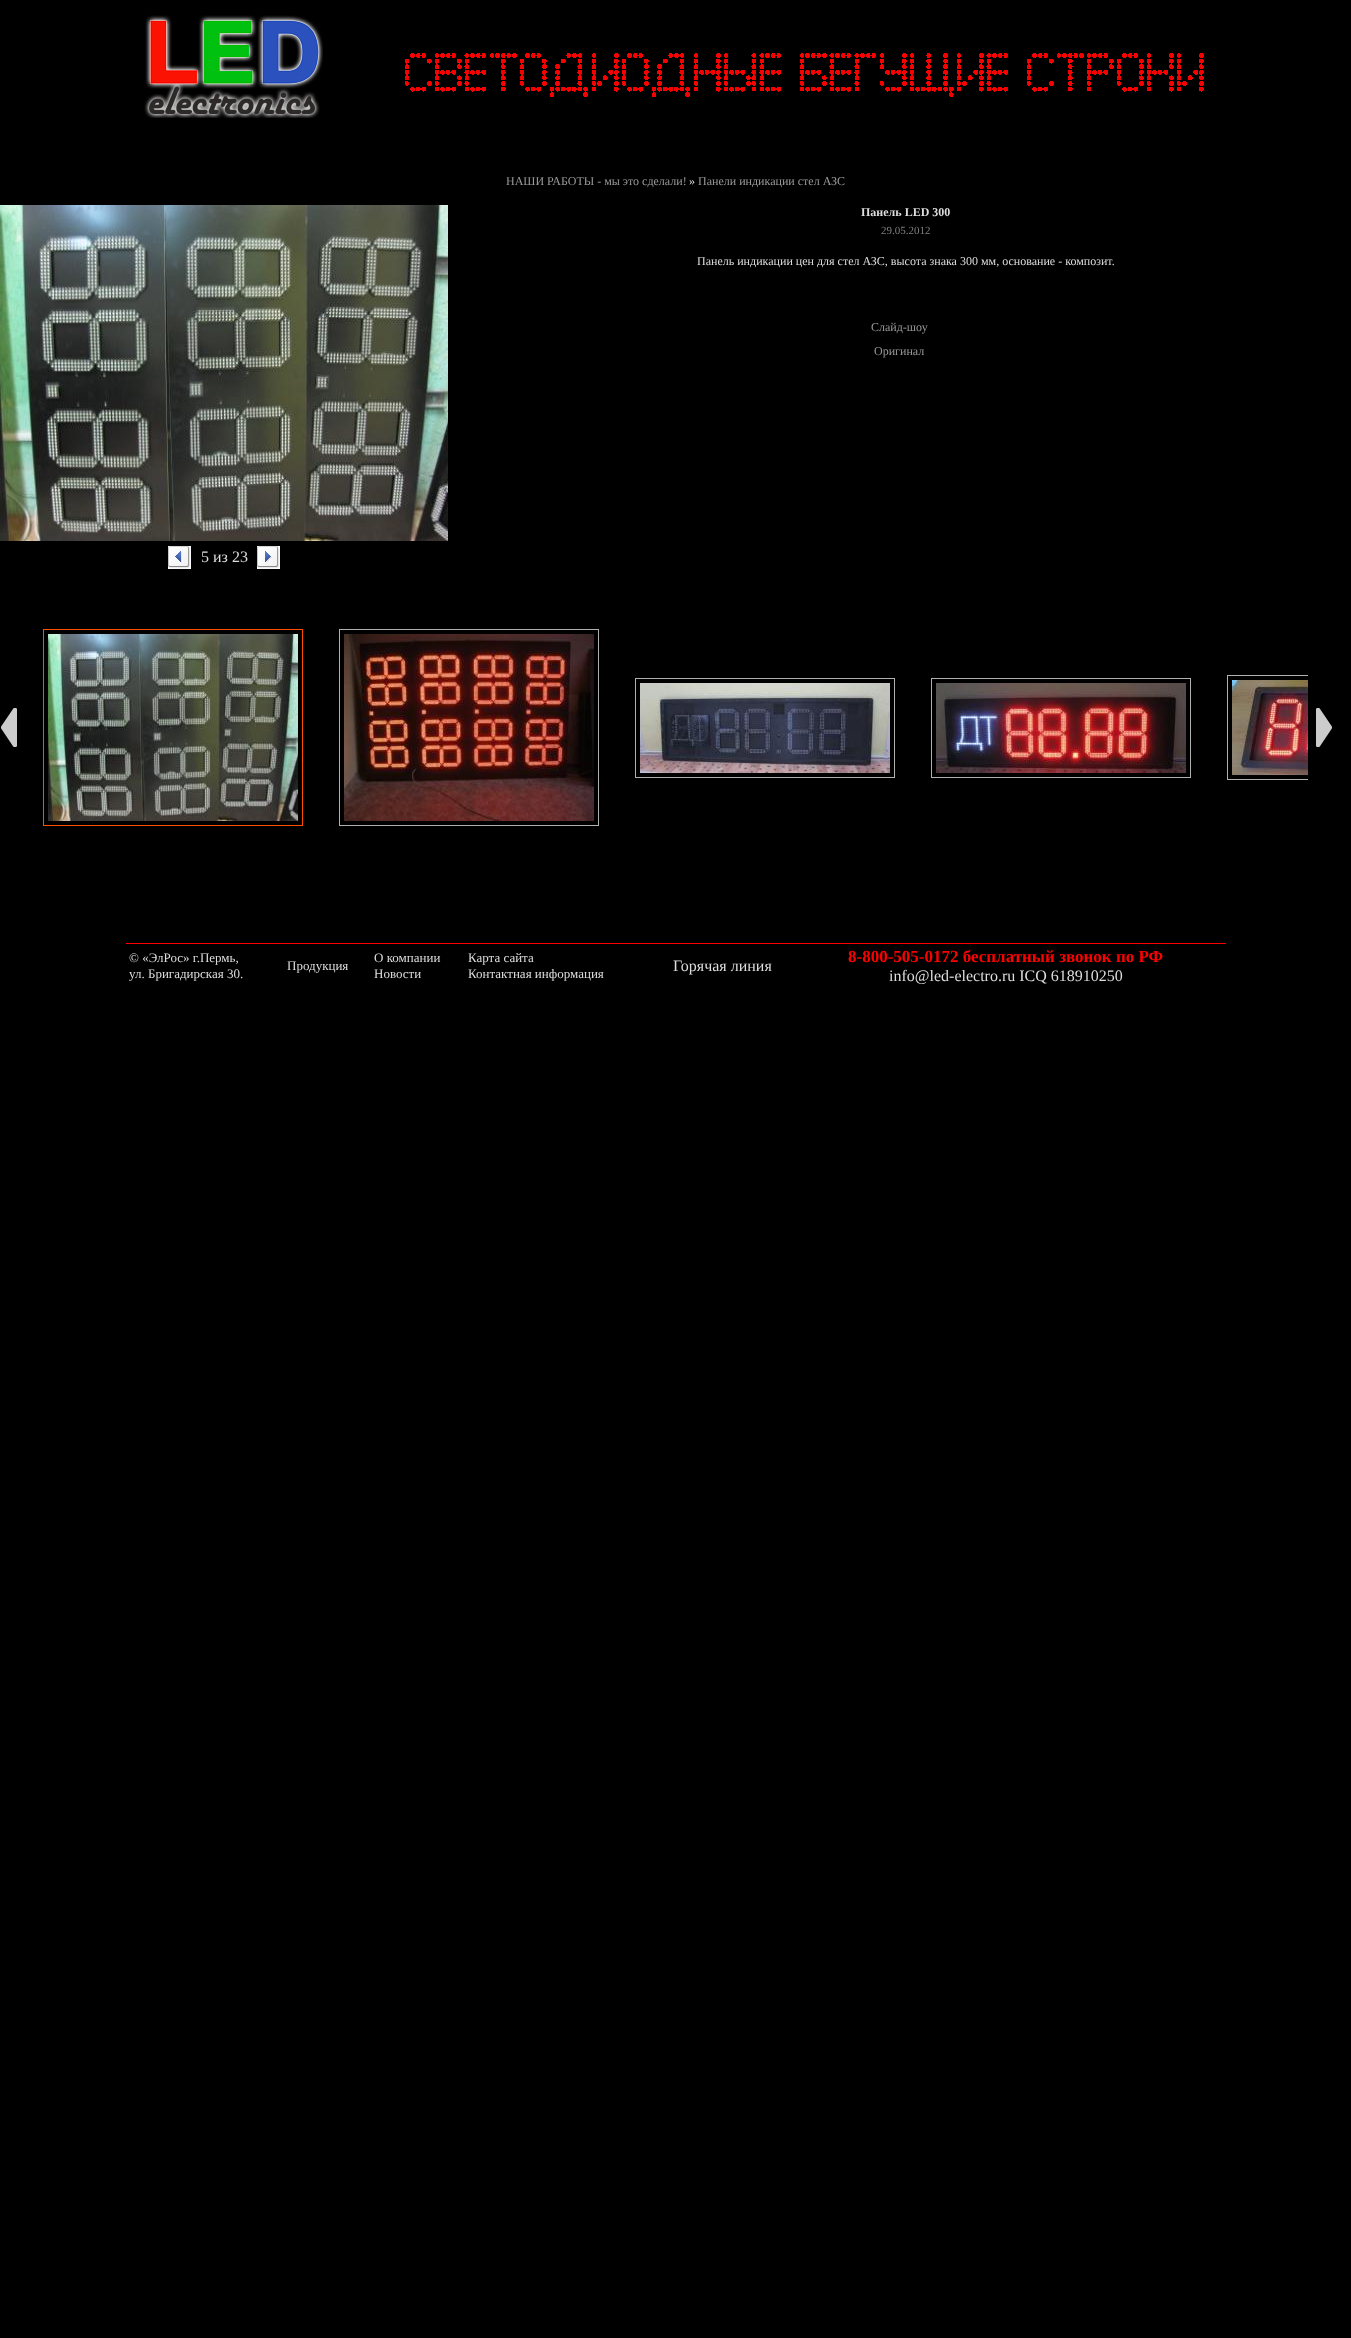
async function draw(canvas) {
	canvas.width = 1351;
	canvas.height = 2338;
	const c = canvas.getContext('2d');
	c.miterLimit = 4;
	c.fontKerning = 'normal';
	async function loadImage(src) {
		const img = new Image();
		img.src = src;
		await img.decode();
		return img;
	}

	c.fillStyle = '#000';
	c.fillRect(0, 0, 1351, 2338);
	c.drawImage(await loadImage('img1.png'), 144, 15, 179, 103);
	c.drawImage(await loadImage('img2.png'), 405, 53, 799, 44);
	c.font = '12px Liberation Serif';
	c.fillStyle = '#999';
	c.fillText('НАШИ РАБОТЫ - мы это сделали!', 506, 185);
	c.fillStyle = '#ddd';
	c.fillText('»', 689, 185);
	c.fillStyle = '#999';
	c.fillText('Панели индикации стел АЗС', 698, 185);
	c.font = 'bold 12px Liberation Serif';
	c.fillStyle = '#ddd';
	c.fillText('Панель LED 300', 861, 216);
	c.font = '11px Liberation Serif';
	c.fillStyle = '#7e7e7e';
	c.fillText('29.05.2012', 881, 234);
	c.font = '12px Liberation Serif';
	c.fillStyle = '#ddd';
	c.fillText('Панель индикации цен для стел АЗС, высота знака 300 мм, основание - композит.', 697, 265);
	c.fillStyle = '#999';
	c.fillText('Слайд-шоу', 871, 331);
	c.fillText('Оригинал', 874, 355);
	c.drawImage(await loadImage('img3.png'), 0, 205, 448, 336);
	c.drawImage(await loadImage('img4.png'), 168, 546, 23, 23);
	c.font = '16px Liberation Serif';
	c.fillStyle = '#ddd';
	c.fillText('5 из 23', 201, 562);
	c.drawImage(await loadImage('img5.png'), 257, 546, 23, 23);
	c.drawImage(await loadImage('img6.png'), 1, 708, 16, 39);
	c.strokeStyle = '#ff4e00';
	c.strokeRect(43.5, 629.5, 259, 196);
	c.drawImage(await loadImage('img7.png'), 48, 634, 250, 187);
	c.strokeStyle = '#b0b0b0';
	c.strokeRect(339.5, 629.5, 259, 196);
	c.drawImage(await loadImage('img8.png'), 344, 634, 250, 187);
	c.strokeRect(635.5, 678.5, 259, 99);
	c.drawImage(await loadImage('img9.png'), 640, 683, 250, 90);
	c.strokeRect(931.5, 678.5, 259, 99);
	c.drawImage(await loadImage('img10.png'), 936, 683, 250, 90);
	c.save();
	c.beginPath();
	c.rect(25, 593, 1283, 270);
	c.clip();
	c.strokeRect(1227.5, 675.5, 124, 104);
	c.restore();
	c.drawImage(await loadImage('img11.png'), 1232, 680, 76, 95);
	c.drawImage(await loadImage('img12.png'), 1316, 708, 16, 39);
	c.fillStyle = '#f00';
	c.fillRect(126, 943, 1100, 1);
	c.font = '13px Liberation Serif';
	c.fillStyle = '#ddd';
	for (const [text, x, y] of [
		['© «ЭлРос» г.Пермь,', 129, 962],
		['ул. Бригадирская 30.', 129, 978],
		['Продукция', 287, 970],
		['О компании', 374, 962],
		['Новости', 374, 978],
		['Карта сайта', 468, 962],
		['Контактная информация', 468, 978],
	]) {
		c.fillText(text, x, y);
	}
	c.font = '16px Liberation Serif';
	c.fillText('Горячая линия', 673, 971);
	c.font = 'bold 17px Liberation Serif';
	c.fillStyle = '#fe0000';
	c.fillText('8-800-505-0172 бесплатный звонок по РФ', 848, 962);
	c.font = '16px Liberation Serif';
	c.fillStyle = '#ddd';
	c.fillText('info@led-electro.ru ICQ 618910250', 889, 981);
}

draw(document.querySelector('canvas'));
